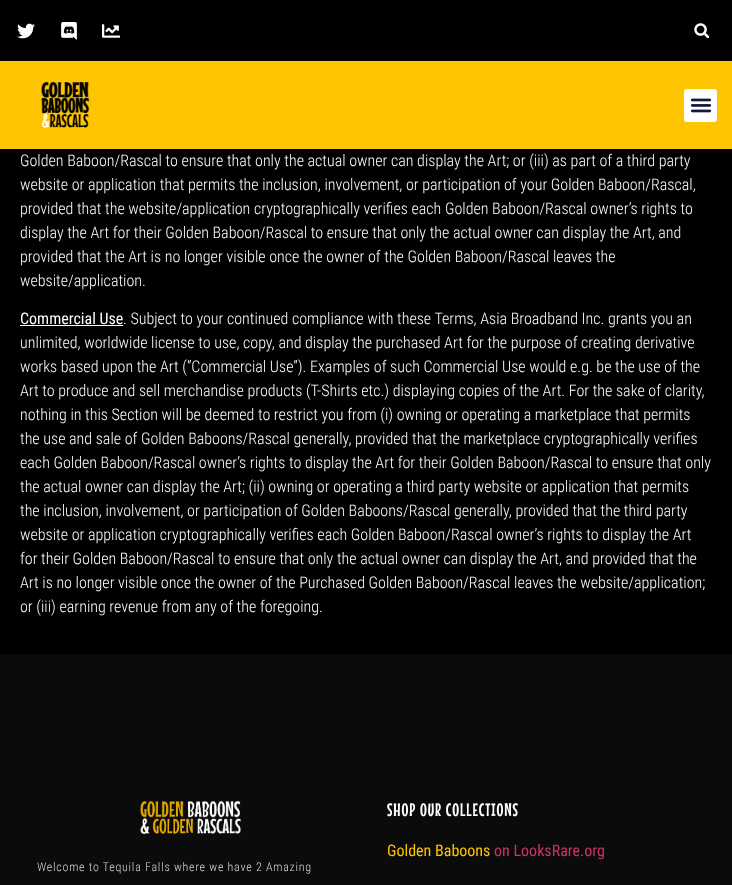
async function draw(canvas) {
	canvas.width = 732;
	canvas.height = 885;
	const c = canvas.getContext('2d');
	c.miterLimit = 4;
	c.fontKerning = 'normal';
	async function loadImage(src) {
		const img = new Image();
		img.src = src;
		await img.decode();
		return img;
	}

	c.fillStyle = '#0b0b0b';
	c.fillRect(0, 0, 732, 885);
	c.fillStyle = '#000';
	c.fillRect(0, 149, 732, 505);
	c.fillStyle = '#0000001a';
	c.filter = 'blur(15px)';
	c.beginPath();
	c.rect(0, 5, 732, 149);
	c.fill();
	c.filter = 'none';
	c.fillStyle = '#000';
	c.fillRect(0, 0, 732, 61);
	c.drawImage(await loadImage('img1.png'), 17, 23, 18, 16);
	c.drawImage(await loadImage('img2.png'), 61, 22, 16, 18);
	c.drawImage(await loadImage('img3.png'), 102, 24, 18, 14);
	c.drawImage(await loadImage('img4.png'), 694, 23, 15, 15);
	c.fillStyle = '#ffc400';
	c.fillRect(0, 61, 732, 88);
	c.drawImage(await loadImage('img5.png'), 41, 81, 49, 47);
	c.fillStyle = '#fff';
	c.beginPath();
	c.roundRect(684, 89, 33, 33, 3);
	c.fill();
	c.drawImage(await loadImage('img6.png'), 690, 98, 22, 15);
	c.font = '300 16px Roboto Condensed';
	for (const [text, x, y] of [
		['Golden Baboon/Rascal to ensure that only the actual owner can display the Art; or (iii) as part of a third party', 20, 166],
		['website or application that permits the inclusion, involvement, or participation of your Golden Baboon/Rascal,', 20, 190],
		['provided that the website/application cryptographically verifies each Golden Baboon/Rascal owner’s rights to', 20, 214],
		['display the Art for their Golden Baboon/Rascal to ensure that only the actual owner can display the Art, and', 20, 238],
		['provided that the Art is no longer visible once the owner of the Golden Baboon/Rascal leaves the', 20, 262],
		['website/application.', 20, 286],
	]) {
		c.fillText(text, x, y);
	}
	c.font = '16px Roboto Condensed';
	c.fillText('Commercial Use', 20, 324);
	c.fillRect(20, 325, 103, 1);
	c.font = '300 16px Roboto Condensed';
	for (const [text, x, y] of [
		['. Subject to your continued compliance with these Terms, Asia Broadband Inc. grants you an', 123, 324],
		['unlimited, worldwide license to use, copy, and display the purchased Art for the purpose of creating derivative', 20, 348],
		['works based upon the Art (“Commercial Use”). Examples of such Commercial Use would e.g. be the use of the', 20, 372],
		['Art to produce and sell merchandise products (T-Shirts etc.) displaying copies of the Art. For the sake of clarity,', 20, 396],
		['nothing in this Section will be deemed to restrict you from (i) owning or operating a marketplace that permits', 20, 420],
		['the use and sale of Golden Baboons/Rascal generally, provided that the marketplace cryptographically verifies', 20, 444],
		['each Golden Baboon/Rascal owner’s rights to display the Art for their Golden Baboon/Rascal to ensure that only', 20, 468],
		['the actual owner can display the Art; (ii) owning or operating a third party website or application that permits', 20, 492],
		['the inclusion, involvement, or participation of Golden Baboons/Rascal generally, provided that the third party', 20, 516],
		['website or application cryptographically verifies each Golden Baboon/Rascal owner’s rights to display the Art', 20, 540],
		['for their Golden Baboon/Rascal to ensure that only the actual owner can display the Art, and provided that the', 20, 564],
		['Art is no longer visible once the owner of the Purchased Golden Baboon/Rascal leaves the website/application;', 20, 588],
		['or (iii) earning revenue from any of the foregoing.', 20, 612],
	]) {
		c.fillText(text, x, y);
	}
	c.letterSpacing = '0.9px';
	c.font = '18px Mouse Memoirs';
	c.fillText('SHOP OUR COLLECTIONS', 387, 816);
	c.letterSpacing = '0px';
	c.font = '16px Roboto Condensed';
	c.fillStyle = '#ffc400';
	c.fillText('Golden Baboons', 387, 856);
	c.fillStyle = '#c36';
	c.fillText('on LooksRare.org', 494, 856);
	c.drawImage(await loadImage('img7.png'), 140, 800, 102, 34);
	c.letterSpacing = '0.75px';
	c.font = '300 12px Roboto Condensed';
	c.fillStyle = '#dadada';
	c.fillText('Welcome to Tequila Falls where we have 2 Amazing', 37, 871);
}

draw(document.querySelector('canvas'));
